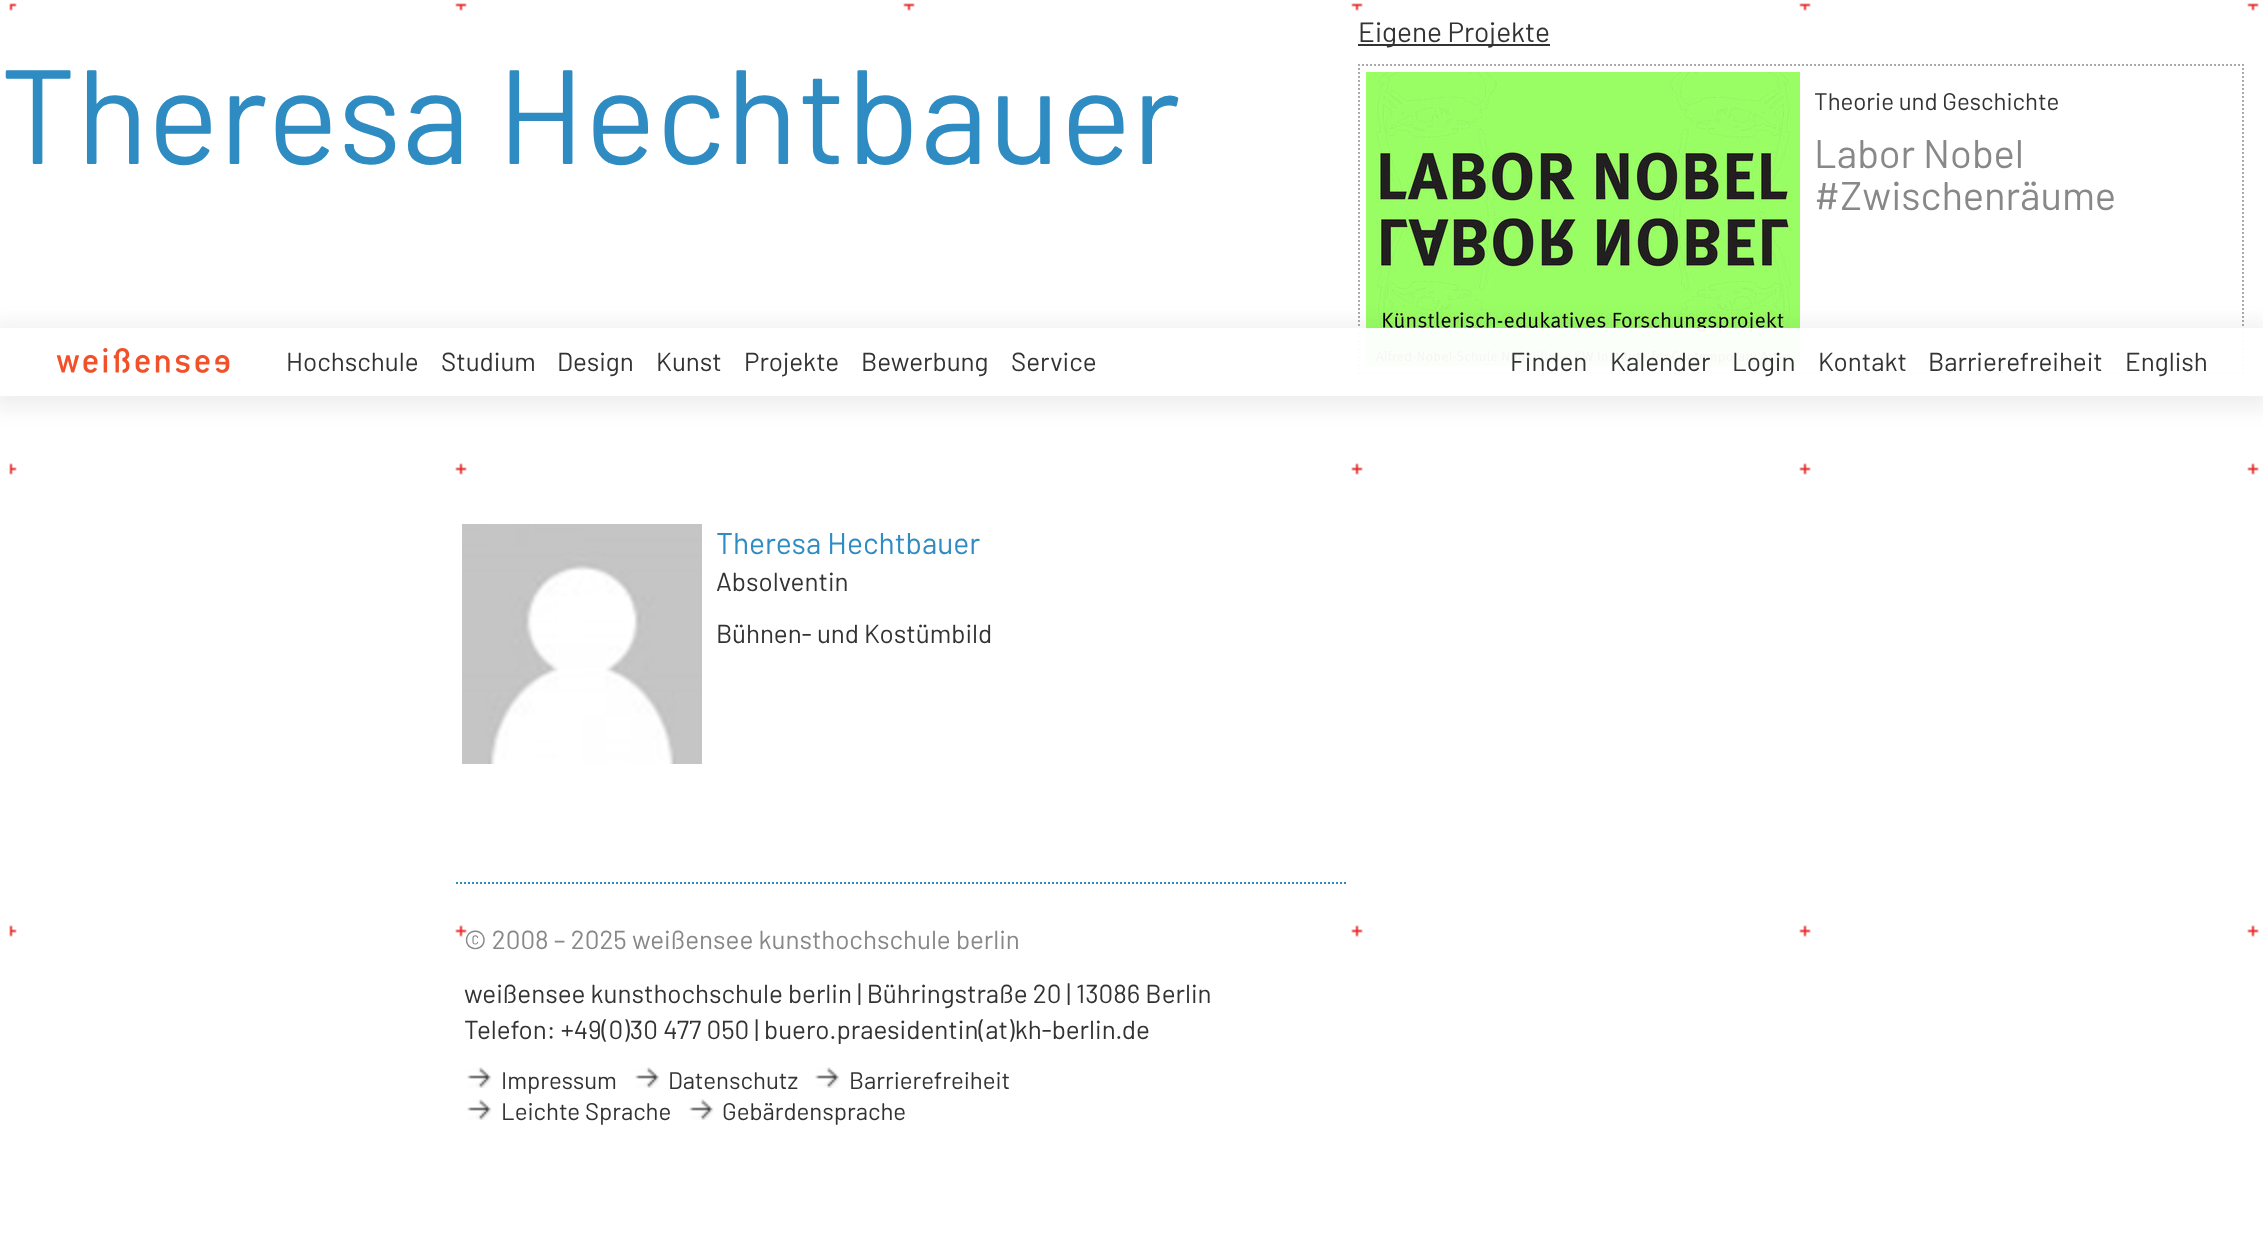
async function draw(canvas) {
	canvas.width = 2263;
	canvas.height = 1235;
	const c = canvas.getContext('2d');
	c.miterLimit = 4;
	c.fontKerning = 'normal';
	async function loadImage(src) {
		const img = new Image();
		img.src = src;
		await img.decode();
		return img;
	}

	c.fillStyle = '#fff';
	c.fillRect(0, 0, 2263, 1235);
	c.drawImage(await loadImage('img1.png'), 9, 3, 2250, 934);
	c.font = '134px Barlow';
	c.fillStyle = '#2f8cc3';
	c.fillText('Theresa Hechtbauer', 0, 164);
	c.fillStyle = '#333';
	c.fillRect(1358, 44, 192, 2);
	c.font = '28px Barlow';
	c.fillText('Eigene Projekte', 1358, 42);
	c.beginPath();
	c.moveTo(1358, 65);
	c.lineTo(2244, 65);
	c.strokeStyle = '#aaa';
	c.lineWidth = 2;
	c.setLineDash([2, 2]);
	c.stroke();
	c.beginPath();
	c.moveTo(2243, 64);
	c.lineTo(2243, 374);
	c.stroke();
	c.beginPath();
	c.moveTo(1358, 373);
	c.lineTo(2244, 373);
	c.stroke();
	c.beginPath();
	c.moveTo(1359, 64);
	c.lineTo(1359, 374);
	c.stroke();
	c.drawImage(await loadImage('img2.png'), 1366, 72, 434, 294);
	c.font = '24px Barlow';
	c.fillText('Theorie und Geschichte', 1814, 110);
	c.font = '40px Barlow';
	c.fillStyle = '#888';
	c.fillText('Labor Nobel', 1814, 168);
	c.fillText('#Zwischenräume', 1814, 210);
	c.drawImage(await loadImage('img3.png'), 462, 524, 240, 240);
	c.font = '30px Barlow';
	c.fillStyle = '#2f8cc3';
	c.fillText('Theresa Hechtbauer', 716, 554);
	c.font = '26px Barlow';
	c.fillStyle = '#333';
	c.fillText('Absolventin', 716, 591);
	c.fillText('Bühnen- und Kostümbild', 716, 643);
	c.save();
	c.beginPath();
	c.moveTo(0, 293);
	c.lineTo(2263, 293);
	c.lineTo(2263, 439);
	c.lineTo(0, 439);
	c.closePath();
	c.moveTo(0, 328);
	c.lineTo(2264, 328);
	c.lineTo(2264, 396);
	c.lineTo(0, 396);
	c.closePath();
	c.clip('evenodd');
	c.fillStyle = '#12121212';
	c.filter = 'blur(10px)';
	c.beginPath();
	c.rect(-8, 324, 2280, 84);
	c.fill();
	c.filter = 'none';
	c.restore();
	c.fillStyle = '#fffffff5';
	c.fillRect(1358, 328, 886, 46);
	c.drawImage(await loadImage('img4.png'), 56, 348, 174, 25);
	c.fillStyle = '#333';
	for (const [text, x, y] of [
		['Hochschule', 286, 371],
		['Studium', 441, 371],
		['Design', 557, 371],
		['Kunst', 656, 371],
		['Projekte', 744, 371],
		['Bewerbung', 861, 371],
		['Service', 1011, 371],
		['Finden', 1510, 371],
		['Kalender', 1610, 371],
		['Login', 1732, 371],
		['Kontakt', 1818, 371],
		['Barrierefreiheit', 1928, 371],
		['English', 2125, 371],
	]) {
		c.fillText(text, x, y);
	}
	c.beginPath();
	c.moveTo(456, 883);
	c.lineTo(1346, 883);
	c.strokeStyle = '#2f8cc3';
	c.stroke();
	c.fillStyle = '#888';
	c.fillText('© 2008 – 2025 weißensee kunsthochschule berlin', 464, 949);
	c.fillStyle = '#333';
	c.fillText('weißensee kunsthochschule berlin | Bühringstraße 20 | 13086 Berlin', 464, 1003);
	c.fillText('Telefon: +49(0)30 477 050 | buero.praesidentin(at)kh-berlin.de', 464, 1039);
	c.drawImage(await loadImage('img5.png'), 467, 1067, 25, 21);
	c.font = '24px Barlow';
	c.fillText('Impressum', 501, 1089);
	c.drawImage(await loadImage('img5.png'), 635, 1067, 25, 21);
	c.fillText('Datenschutz', 668, 1089);
	c.drawImage(await loadImage('img5.png'), 815, 1067, 25, 21);
	c.fillText('Barrierefreiheit', 849, 1089);
	c.drawImage(await loadImage('img5.png'), 467, 1099, 25, 21);
	c.fillText('Leichte Sprache', 501, 1120);
	c.drawImage(await loadImage('img5.png'), 689, 1099, 25, 21);
	c.fillText('Gebärdensprache', 722, 1120);
}

draw(document.querySelector('canvas'));
